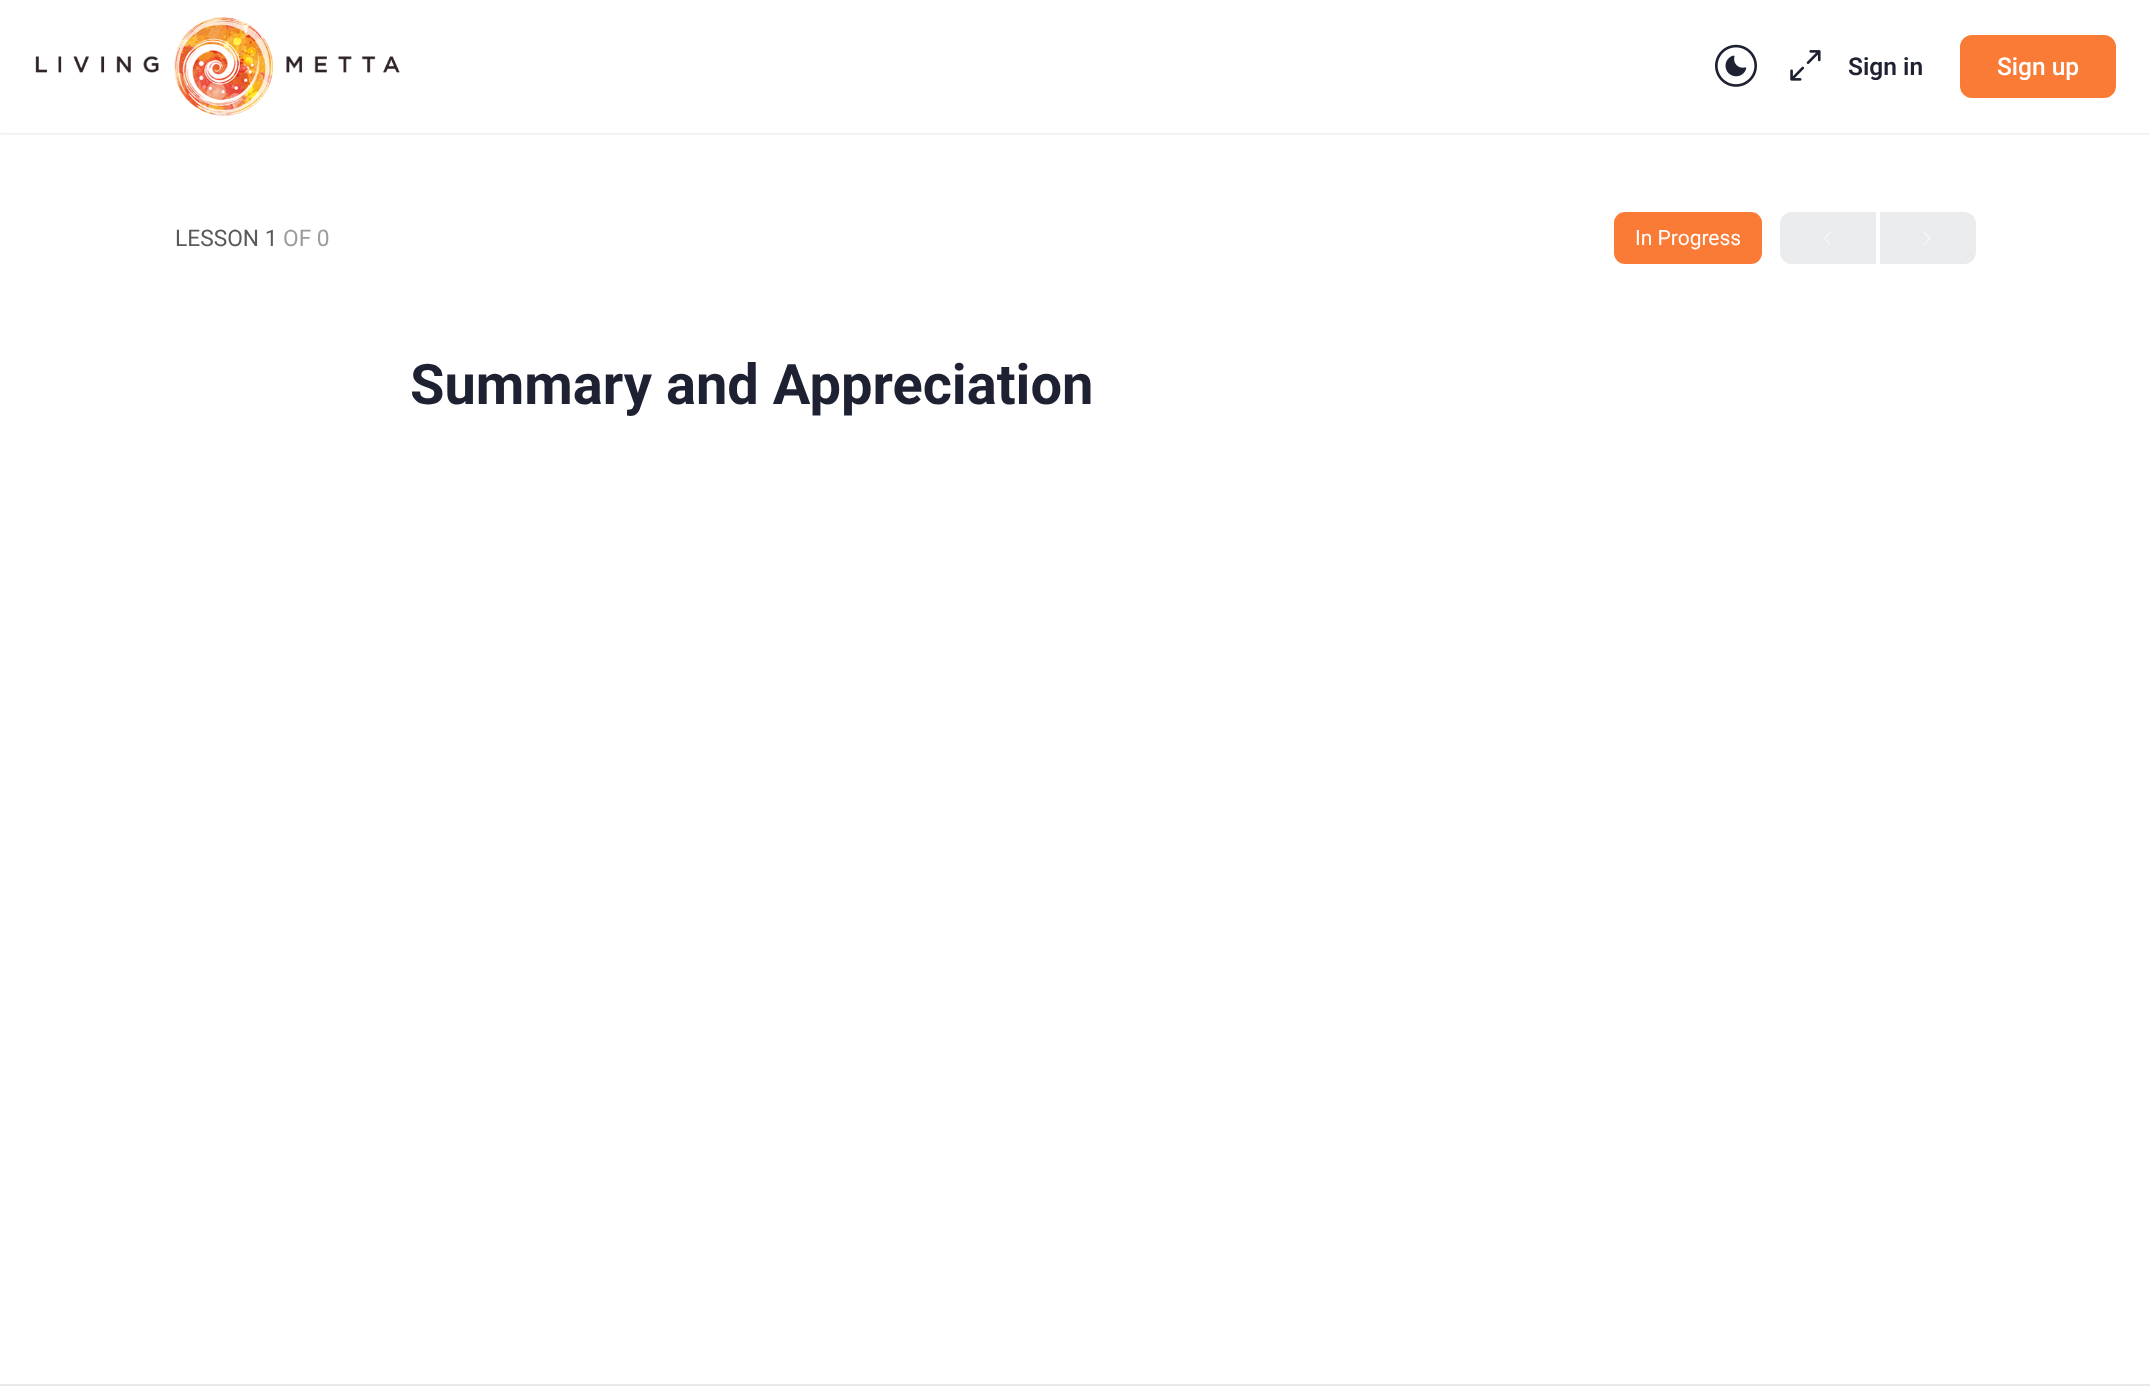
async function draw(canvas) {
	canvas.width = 2150;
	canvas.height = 1386;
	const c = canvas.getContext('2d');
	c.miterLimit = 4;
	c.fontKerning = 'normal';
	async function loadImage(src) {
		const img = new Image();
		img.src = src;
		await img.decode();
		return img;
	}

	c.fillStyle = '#fff';
	c.fillRect(0, 0, 2150, 1386);
	c.fillStyle = '#41476c26';
	c.filter = 'blur(1px)';
	c.beginPath();
	c.rect(0, 0, 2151, 133);
	c.fill();
	c.filter = 'none';
	c.fillStyle = '#8b8d9d0d';
	c.beginPath();
	c.moveTo(0, 133);
	c.lineTo(0, 135);
	c.lineTo(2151, 135);
	c.lineTo(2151, 2);
	c.lineTo(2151, 133);
	c.closePath();
	c.fill();
	c.fillStyle = '#fff';
	c.fillRect(0, 0, 2150, 133);
	c.drawImage(await loadImage('img1.png'), 35, 17, 365, 99);
	c.drawImage(await loadImage('img2.png'), 1715, 44, 42, 43);
	c.drawImage(await loadImage('img3.png'), 1790, 50, 31, 31);
	c.font = '600 24.5px Roboto';
	c.fillStyle = '#1e2132';
	c.fillText('Sign in', 1848, 75);
	c.fillStyle = '#fa7b36';
	c.beginPath();
	c.roundRect(1961, 36, 154, 61, 11);
	c.fill();
	c.strokeStyle = '#fa7b36';
	c.lineWidth = 2;
	c.stroke();
	c.font = '500 24.5px Roboto';
	c.fillStyle = '#fff';
	c.fillText('Sign up', 1997, 75);
	c.fillStyle = '#eaeaea';
	c.fillRect(0, 1384, 2150, 2);
	c.font = '22.75px Roboto';
	c.fillStyle = '#5a5a5a';
	c.fillText('LESSON 1', 175, 246);
	c.fillStyle = '#9b9c9f';
	c.fillText('OF 0', 283, 246);
	c.fillStyle = '#fa7b36';
	c.beginPath();
	c.roundRect(1614, 212, 148, 52, 11);
	c.fill();
	c.font = '21px Roboto';
	c.fillStyle = '#fff';
	c.fillText('In Progress', 1635, 245);
	c.fillStyle = '#e9ebed';
	c.beginPath();
	c.roundRect(1780, 212, 96, 52, [12, 0, 0, 12]);
	c.fill();
	c.drawImage(await loadImage('img4.png'), 1823, 232, 8, 13);
	c.beginPath();
	c.roundRect(1880, 212, 96, 52, [0, 12, 12, 0]);
	c.fill();
	c.drawImage(await loadImage('img5.png'), 1923, 232, 8, 13);
	c.font = 'bold 56px Roboto';
	c.fillStyle = '#1e2132';
	c.fillText('Summary and Appreciation', 410, 404);
}

draw(document.querySelector('canvas'));
